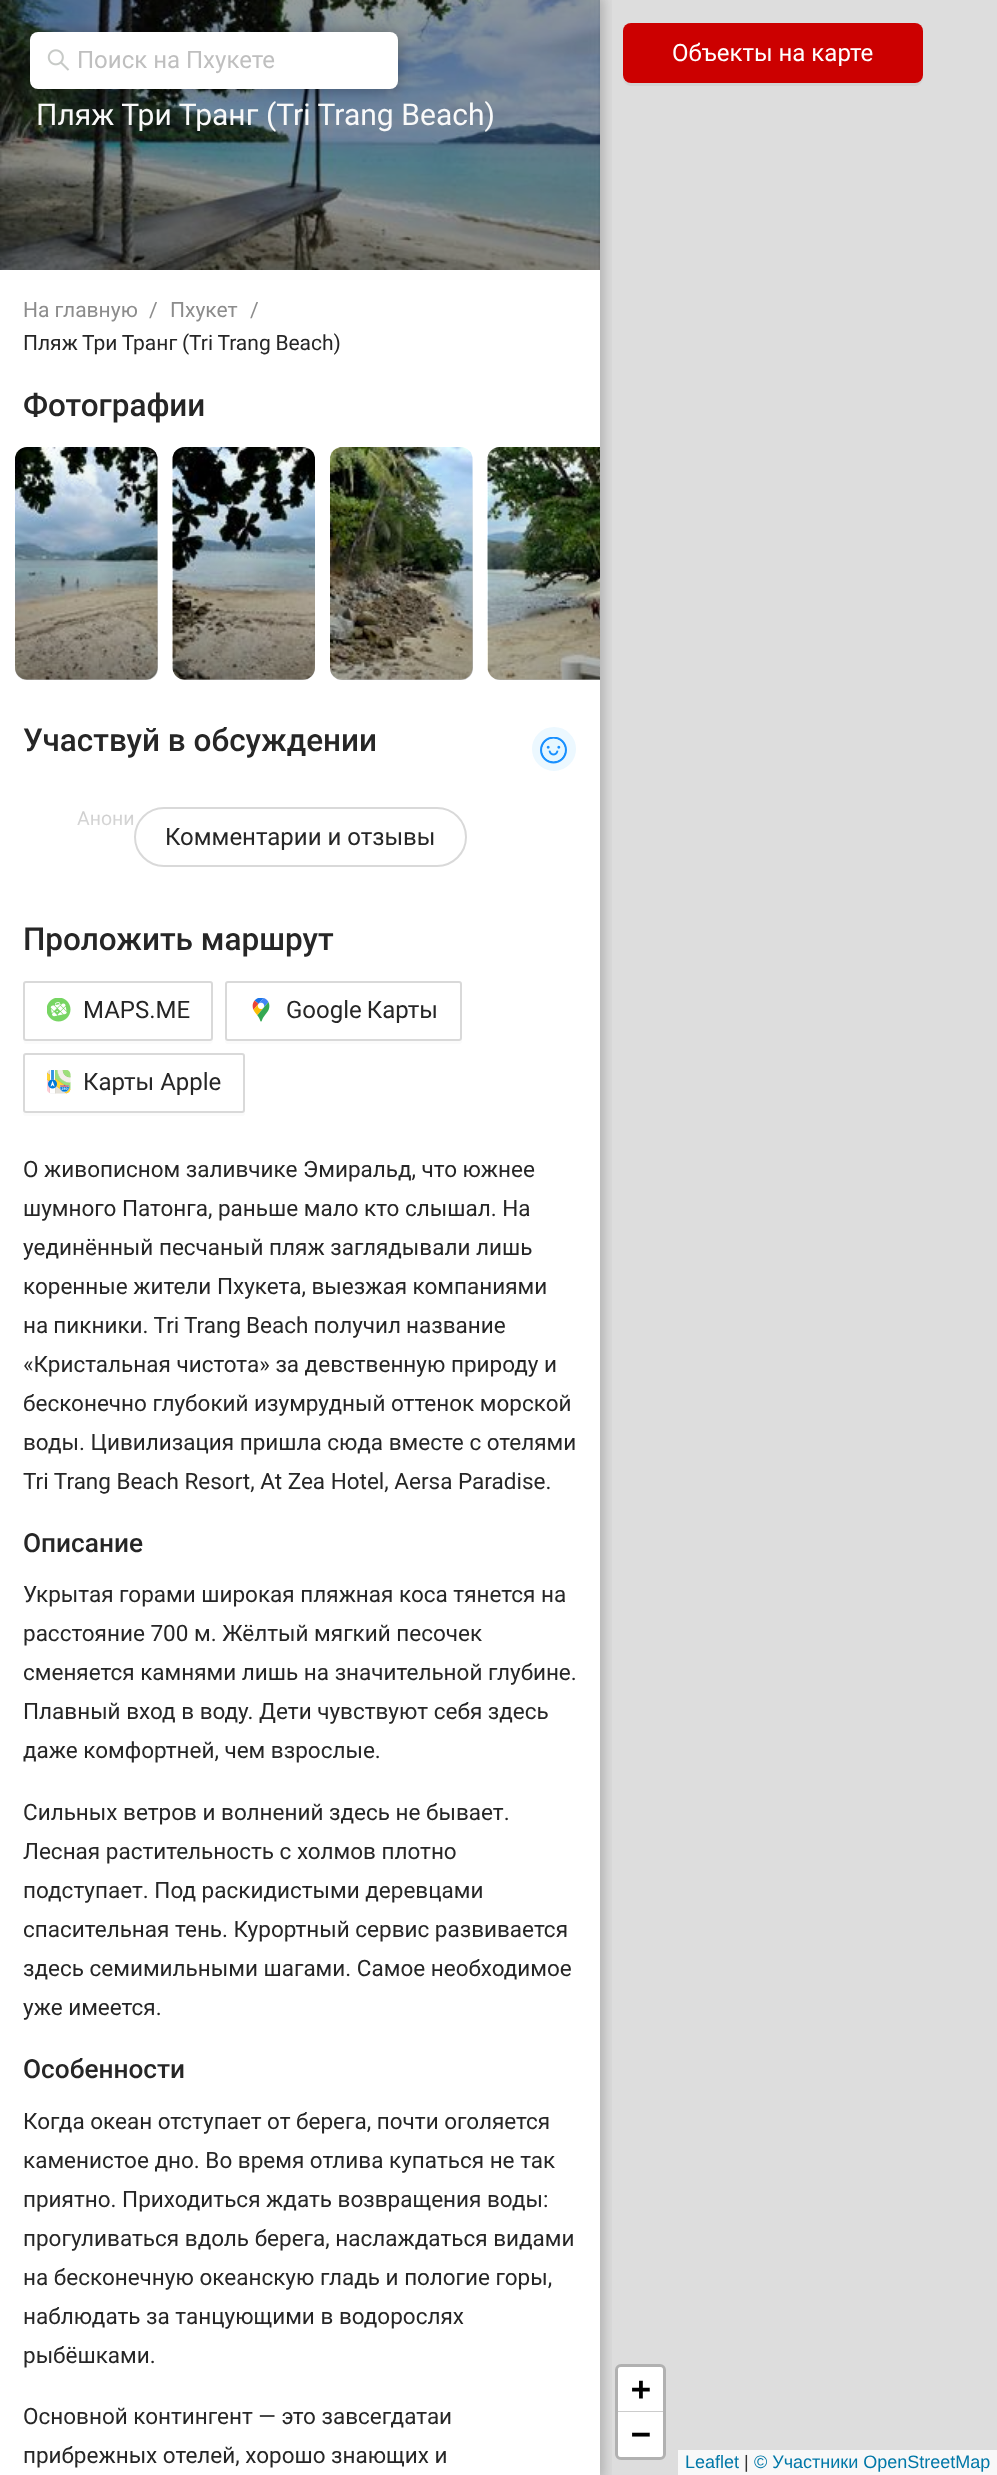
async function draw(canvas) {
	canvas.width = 997;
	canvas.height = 2475;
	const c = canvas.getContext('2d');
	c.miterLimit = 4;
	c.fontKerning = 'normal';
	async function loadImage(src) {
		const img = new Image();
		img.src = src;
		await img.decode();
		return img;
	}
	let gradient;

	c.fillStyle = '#fff';
	c.fillRect(0, 0, 997, 2475);
	c.fillStyle = '#ddd';
	c.fillRect(600, 0, 397, 2475);
	c.fillStyle = '#d3d3d3';
	c.beginPath();
	c.moveTo(623, 78);
	c.bezierCurveTo(623, 82, 627, 86, 631, 86);
	c.lineTo(915, 86);
	c.bezierCurveTo(919, 86, 923, 82, 923, 78);
	c.lineTo(923, 34);
	c.lineTo(922, 31);
	c.lineTo(922, 75);
	c.bezierCurveTo(922, 79, 919, 82, 915, 82);
	c.lineTo(630, 82);
	c.bezierCurveTo(627, 82, 624, 81, 623, 78);
	c.closePath();
	c.fill();
	c.fillStyle = '#c00';
	c.beginPath();
	c.roundRect(623, 23, 300, 60, 8);
	c.fill();
	c.beginPath();
	c.roundRect(616.5, 2365.5, 48, 93, 4.5);
	c.strokeStyle = '#b1b1b1';
	c.lineWidth = 3;
	c.stroke();
	c.fillStyle = '#fff';
	c.beginPath();
	c.roundRect(618, 2367, 45, 45, [3, 3, 0, 0]);
	c.fill();
	c.fillStyle = '#ccc';
	c.fillRect(618, 2411, 45, 1);
	c.fillStyle = '#fff';
	c.beginPath();
	c.roundRect(618, 2412, 45, 45, [0, 0, 3, 3]);
	c.fill();
	c.save();
	c.beginPath();
	c.rect(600, 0, 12, 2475);
	c.clip();
	c.fillStyle = '#0000002e';
	c.filter = 'blur(6px)';
	c.beginPath();
	c.rect(-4, -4, 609, 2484);
	c.fill();
	c.filter = 'none';
	c.restore();
	c.drawImage(await loadImage('img2.png'), 0, 0, 600, 270);
	c.fillStyle = '#00000052';
	c.filter = 'blur(7.5px)';
	c.beginPath();
	c.roundRect(30, 32, 368, 57, 8);
	c.fill();
	c.filter = 'none';
	c.fillStyle = '#fff';
	c.beginPath();
	c.roundRect(30, 32, 368, 57, 8);
	c.fill();
	c.drawImage(await loadImage('img1.png'), 47, 49, 23, 22);
	c.font = '24px Roboto';
	c.fillStyle = '#bfbfbf';
	c.fillText('Поиск на Пхукете', 77, 68);
	c.fillStyle = '#fff';
	c.fillText('Объекты на карте', 672, 61);
	c.font = 'bold 33px DejaVu Sans Mono';
	c.fillStyle = '#000';
	c.fillText('+', 631, 2400);
	c.fillText('−', 631, 2445);
	c.fillStyle = '#f8f8f8';
	c.fillRect(678, 2450, 319, 25);
	c.font = '18px Liberation Sans';
	c.fillStyle = '#0078a8';
	c.fillText('Leaflet', 685, 2468);
	c.fillStyle = '#333';
	c.fillText('|', 744, 2468);
	c.fillStyle = '#0078a8';
	c.fillText('© Участники OpenStreetMap', 754, 2468);
	c.wordSpacing = '0.25px';
	c.font = '30px Roboto';
	c.fillStyle = '#f9f9f9';
	c.fillText('Пляж Три Транг (Tri Trang Beach)', 36, 125);
	c.wordSpacing = '0px';
	c.font = '21px Roboto';
	c.fillStyle = '#8c8c8c';
	for (const [text, x, y] of [
		['На главную', 23, 317],
		['/', 149, 317],
		['Пхукет', 170, 317],
		['/', 250, 317],
	]) {
		c.fillText(text, x, y);
	}
	c.wordSpacing = '-0.5px';
	c.fillStyle = '#262626';
	c.fillText('Пляж Три Транг (Tri Trang Beach)', 23, 350);
	c.wordSpacing = '0px';
	c.font = '500 31.5px Roboto';
	c.fillText('Фотографии', 23, 416);
	c.drawImage(await loadImage('img3.png'), 15, 447, 143, 233);
	gradient = c.createLinearGradient(86, 680, 86, 447);
	gradient.addColorStop(0, '#00000052');
	gradient.addColorStop(1, '#00000000');
	c.fillStyle = gradient;
	c.beginPath();
	c.roundRect(15, 447, 143, 233, 12);
	c.fill();
	c.drawImage(await loadImage('img4.png'), 172, 447, 143, 233);
	gradient = c.createLinearGradient(244, 680, 244, 447);
	gradient.addColorStop(0, '#00000052');
	gradient.addColorStop(1, '#00000000');
	c.fillStyle = gradient;
	c.beginPath();
	c.roundRect(173, 447, 142, 233, 12);
	c.fill();
	c.drawImage(await loadImage('img5.png'), 330, 447, 143, 233);
	gradient = c.createLinearGradient(401, 680, 401, 447);
	gradient.addColorStop(0, '#00000052');
	gradient.addColorStop(1, '#00000000');
	c.fillStyle = gradient;
	c.beginPath();
	c.roundRect(330, 447, 143, 233, 12);
	c.fill();
	c.drawImage(await loadImage('img6.png'), 487, 447, 113, 233);
	gradient = c.createLinearGradient(559, 680, 559, 447);
	gradient.addColorStop(0, '#00000052');
	gradient.addColorStop(1, '#00000000');
	c.fillStyle = gradient;
	c.beginPath();
	c.roundRect(488, 447, 112, 233, [12, 0, 0, 12]);
	c.fill();
	c.fillStyle = '#262626';
	c.fillText('Участвуй в обсуждении', 23, 751);
	c.fillStyle = '#ecf8ff';
	c.beginPath();
	c.arc(554, 749, 23, 0, 2 * Math.PI);
	c.fill();
	c.strokeStyle = '#fff';
	c.lineWidth = 2;
	c.stroke();
	c.drawImage(await loadImage('img7.png'), 540, 737, 27, 27);
	c.font = '19.5px Roboto';
	c.fillStyle = '#8c8c8c';
	c.fillText('Анони', 77, 825);
	gradient = c.createLinearGradient(300, 893, 300, 782);
	gradient.addColorStop(0, '#fff');
	gradient.addColorStop(1, '#ffffff6b');
	c.fillStyle = gradient;
	c.fillRect(76, 811, 57, 15);
	c.beginPath();
	c.roundRect(135, 808, 331, 58, 29);
	c.strokeStyle = '#d9d9d9';
	c.stroke();
	c.font = '24px Roboto';
	c.fillStyle = '#262626';
	c.fillText('Комментарии и отзывы', 165, 845);
	c.font = '500 31.5px Roboto';
	c.fillText('Проложить маршрут', 23, 950);
	c.fillStyle = '#fbfbfb';
	c.beginPath();
	c.moveTo(23, 1040);
	c.lineTo(24, 1043);
	c.lineTo(25, 1044);
	c.lineTo(210, 1044);
	c.bezierCurveTo(213, 1044, 213, 1040, 213, 1038);
	c.bezierCurveTo(213, 1040, 212, 1041, 210, 1041);
	c.lineTo(26, 1041);
	c.bezierCurveTo(24, 1041, 24, 1040, 23, 1040);
	c.closePath();
	c.fill();
	c.beginPath();
	c.roundRect(24, 982, 188, 58, 2);
	c.stroke();
	c.drawImage(await loadImage('img8.png'), 47, 998, 24, 24);
	c.font = '24px Roboto';
	c.fillStyle = '#262626';
	c.fillText('MAPS.ME', 83, 1018);
	c.fillStyle = '#fbfbfb';
	c.beginPath();
	c.moveTo(225, 1038);
	c.lineTo(225, 1041);
	c.bezierCurveTo(225, 1043, 226, 1044, 228, 1044);
	c.lineTo(459, 1044);
	c.bezierCurveTo(461, 1044, 462, 1043, 462, 1041);
	c.lineTo(462, 1038);
	c.bezierCurveTo(462, 1040, 461, 1041, 459, 1041);
	c.lineTo(228, 1041);
	c.bezierCurveTo(226, 1041, 225, 1040, 225, 1038);
	c.closePath();
	c.fill();
	c.beginPath();
	c.roundRect(226, 982, 235, 58, 2);
	c.stroke();
	c.drawImage(await loadImage('img9.png'), 252, 998, 18, 24);
	c.wordSpacing = '-1px';
	c.fillStyle = '#262626';
	c.fillText('Google Карты', 286, 1018);
	c.fillStyle = '#fbfbfb';
	c.beginPath();
	c.moveTo(23, 1112);
	c.lineTo(23, 1113);
	c.bezierCurveTo(23, 1115, 24, 1116, 26, 1116);
	c.lineTo(242, 1116);
	c.bezierCurveTo(244, 1116, 245, 1115, 245, 1113);
	c.lineTo(245, 1059);
	c.lineTo(244, 1057);
	c.lineTo(244, 1110);
	c.bezierCurveTo(244, 1112, 243, 1113, 242, 1113);
	c.lineTo(26, 1113);
	c.bezierCurveTo(24, 1113, 24, 1112, 23, 1112);
	c.closePath();
	c.fill();
	c.fillStyle = '#fff';
	c.beginPath();
	c.roundRect(24, 1054, 220, 58, 2);
	c.fill();
	c.stroke();
	c.drawImage(await loadImage('img10.png'), 47, 1070, 24, 24);
	c.wordSpacing = '0px';
	c.fillStyle = '#262626';
	c.fillText('Карты Apple', 83, 1090);
	c.font = '22.5px Roboto';
	for (const [text, x, y] of [
		['О живописном заливчике Эмиральд, что южнее', 23, 1177],
		['шумного Патонга, раньше мало кто слышал. На', 23, 1216],
		['уединённый песчаный пляж заглядывали лишь', 23, 1255],
		['коренные жители Пхукета, выезжая компаниями', 23, 1294],
	]) {
		c.fillText(text, x, y);
	}
	c.wordSpacing = '-0.5px';
	c.fillText('на пикники. Tri Trang Beach получил название', 23, 1333);
	c.wordSpacing = '0px';
	for (const [text, x, y] of [
		['«Кристальная чистота» за девственную природу и', 23, 1372],
		['бесконечно глубокий изумрудный оттенок морской', 23, 1411],
		['воды. Цивилизация пришла сюда вместе с отелями', 23, 1450],
		['Tri Trang Beach Resort, At Zea Hotel, Aersa Paradise.', 23, 1489],
	]) {
		c.fillText(text, x, y);
	}
	c.font = '500 26.25px Roboto';
	c.fillText('Описание', 23, 1552);
	c.font = '22.5px Roboto';
	for (const [text, x, y] of [
		['Укрытая горами широкая пляжная коса тянется на', 23, 1602],
		['расстояние 700 м. Жёлтый мягкий песочек', 23, 1641],
		['сменяется камнями лишь на значительной глубине.', 23, 1680],
		['Плавный вход в воду. Дети чувствуют себя здесь', 23, 1719],
		['даже комфортней, чем взрослые.', 23, 1758],
		['Сильных ветров и волнений здесь не бывает.', 23, 1820],
		['Лесная растительность с холмов плотно', 23, 1859],
		['подступает. Под раскидистыми деревцами', 23, 1898],
		['спасительная тень. Курортный сервис развивается', 23, 1937],
		['здесь семимильными шагами. Самое необходимое', 23, 1976],
		['уже имеется.', 23, 2015],
	]) {
		c.fillText(text, x, y);
	}
	c.font = '500 26.25px Roboto';
	c.fillText('Особенности', 23, 2078);
	c.font = '22.5px Roboto';
	for (const [text, x, y] of [
		['Когда океан отступает от берега, почти оголяется', 23, 2129],
		['каменистое дно. Во время отлива купаться не так', 23, 2168],
		['приятно. Приходиться ждать возвращения воды:', 23, 2207],
		['прогуливаться вдоль берега, наслаждаться видами', 23, 2246],
		['на бесконечную океанскую гладь и пологие горы,', 23, 2285],
		['наблюдать за танцующими в водорослях', 23, 2324],
		['рыбёшками.', 23, 2363],
		['Основной контингент — это завсегдатаи', 23, 2424],
		['прибрежных отелей, хорошо знающих и', 23, 2463],
	]) {
		c.fillText(text, x, y);
	}
}

draw(document.querySelector('canvas'));
